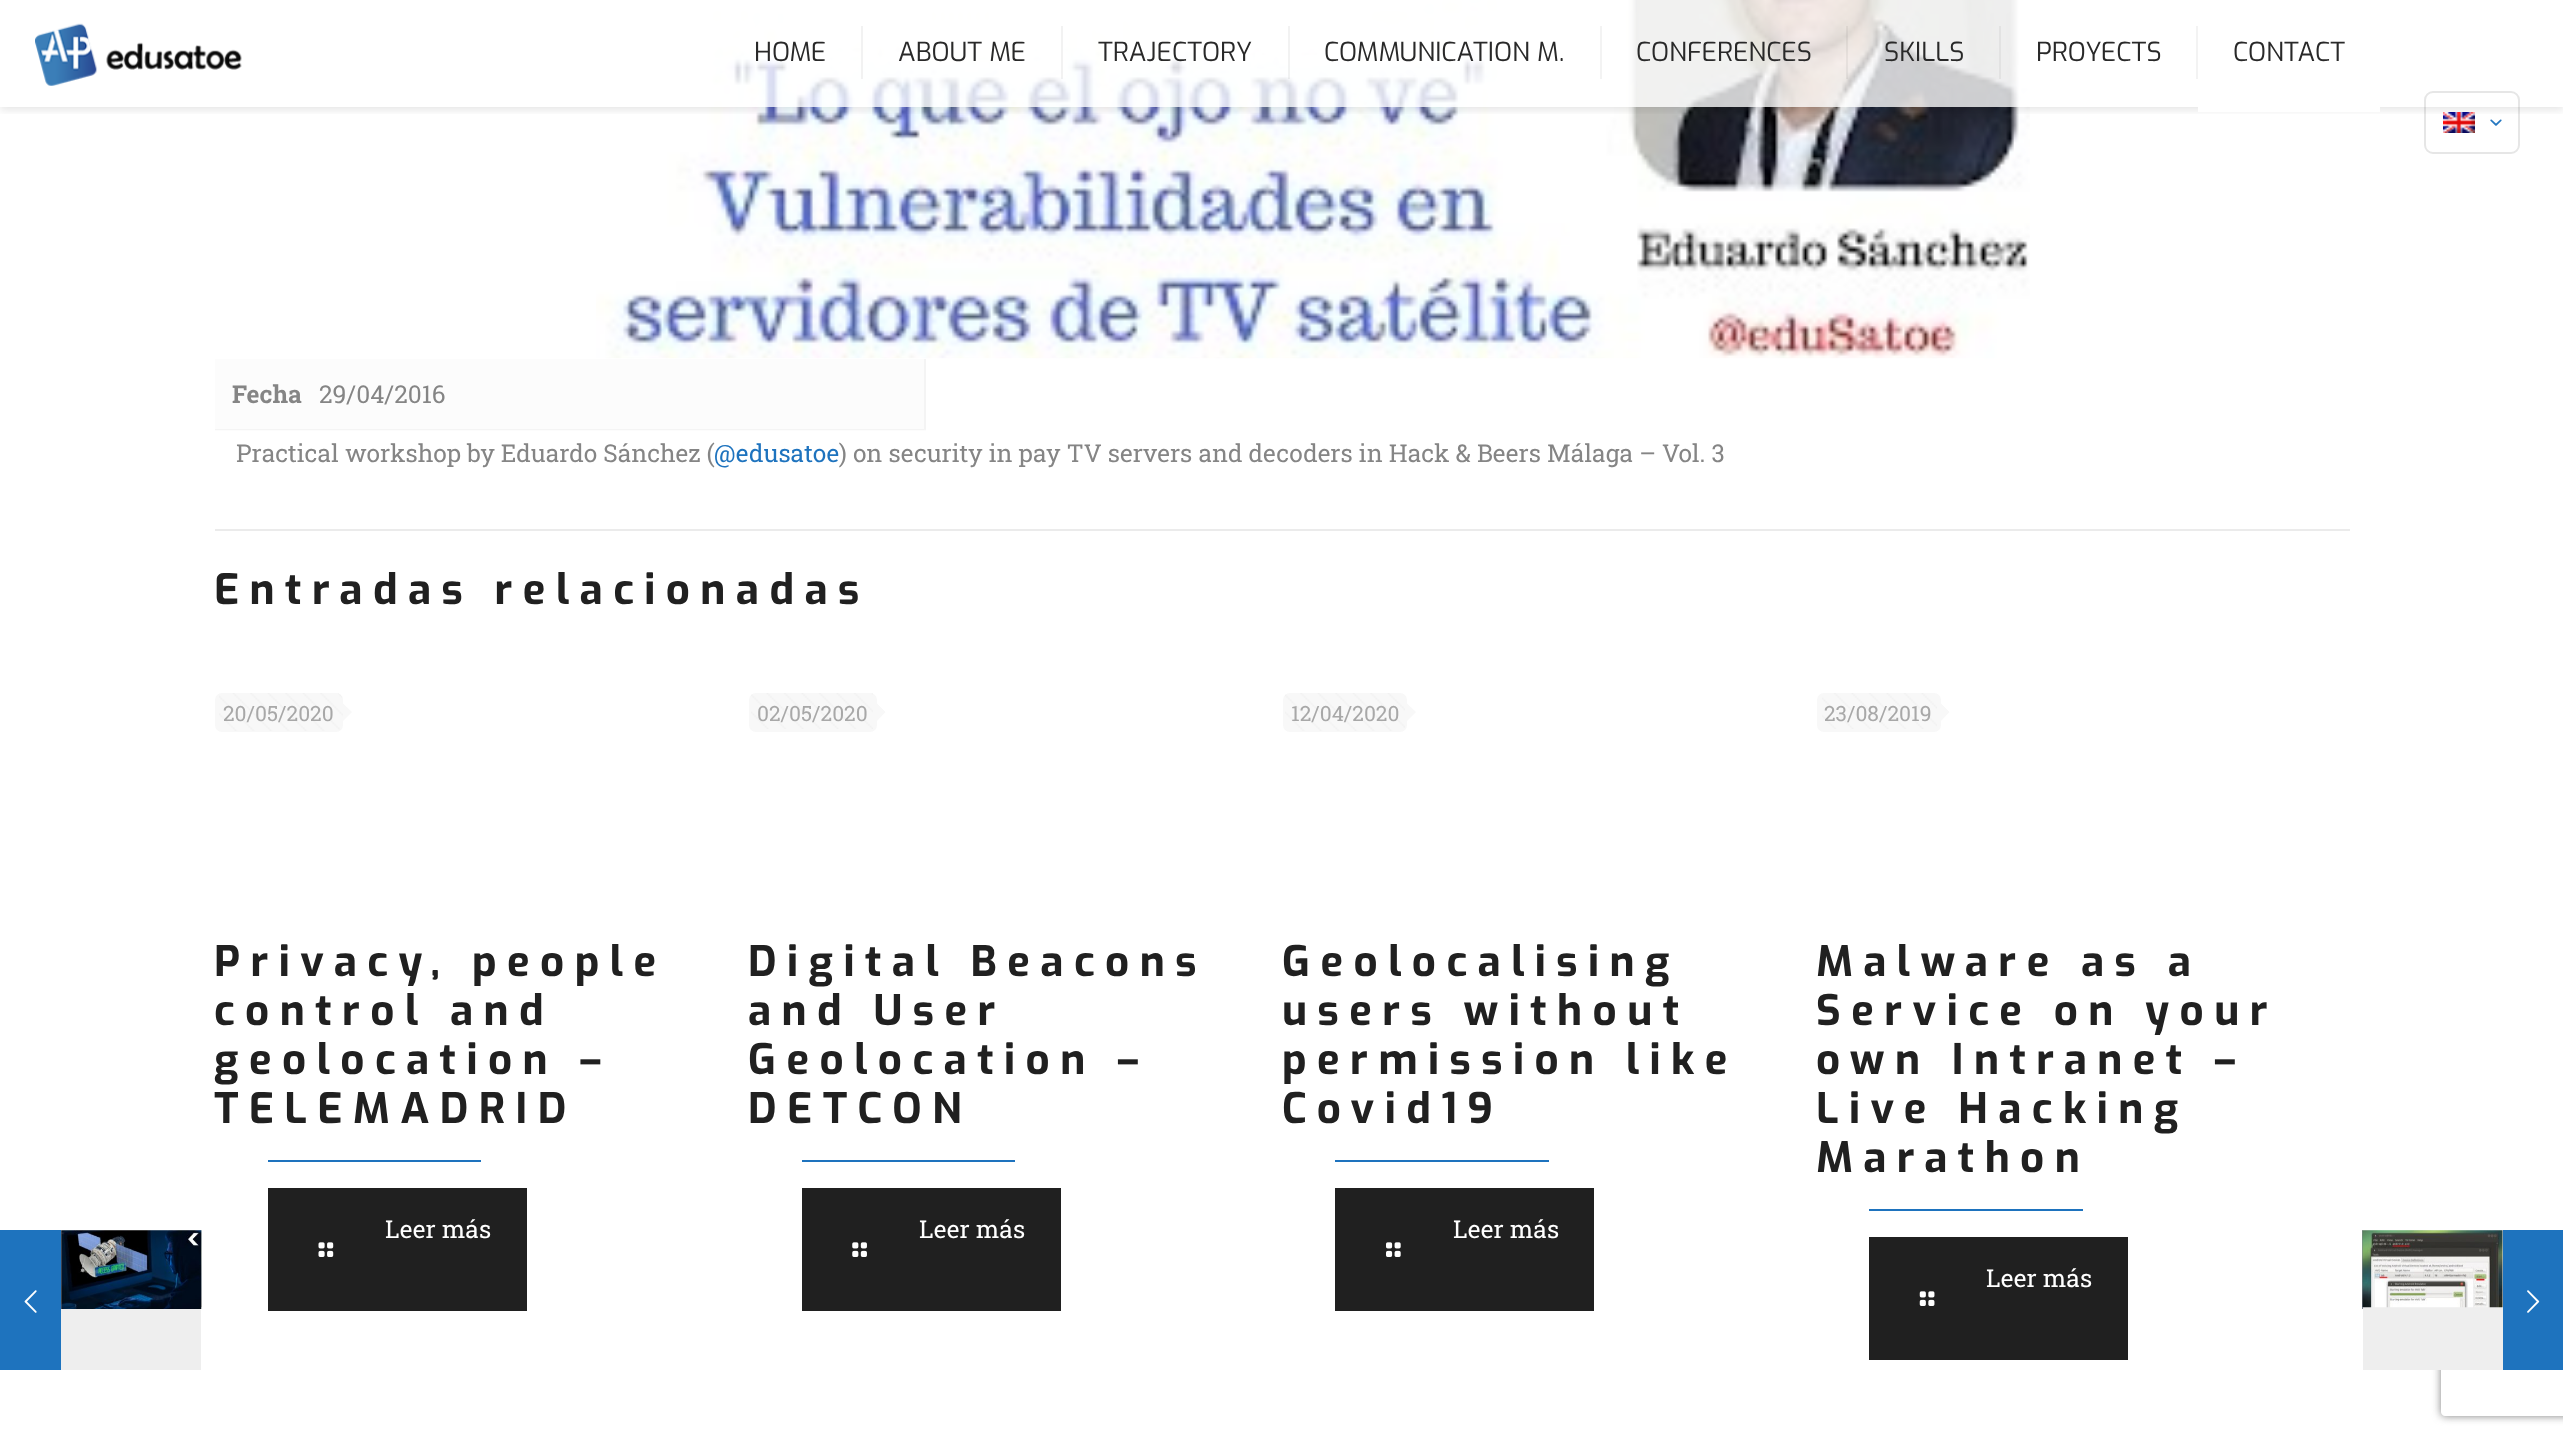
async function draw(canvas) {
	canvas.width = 2563;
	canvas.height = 1440;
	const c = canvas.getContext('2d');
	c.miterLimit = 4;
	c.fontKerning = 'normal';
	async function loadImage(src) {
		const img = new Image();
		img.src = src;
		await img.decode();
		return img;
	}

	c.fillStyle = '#fff';
	c.fillRect(0, 0, 2563, 1440);
	c.fillStyle = '#1e73be';
	c.fillRect(0, 1230, 61, 140);
	c.drawImage(await loadImage('img1.png'), 24, 1290, 13, 23);
	c.fillStyle = '#eee';
	c.fillRect(61, 1230, 140, 140);
	c.drawImage(await loadImage('img15.png'), 201, 1230, 1, 78);
	c.drawImage(await loadImage('img2.png'), 61, 1230, 141, 79);
	c.drawImage(await loadImage('img6.png'), 596, 0, 1434, 359);
	c.save();
	c.beginPath();
	c.rect(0, 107, 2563, 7);
	c.clip();
	c.fillStyle = '#0000001a';
	c.filter = 'blur(4.5px)';
	c.beginPath();
	c.rect(0, 4, 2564, 106);
	c.fill();
	c.filter = 'none';
	c.restore();
	c.fillStyle = '#ffffffc7';
	c.fillRect(2, 0, 2560, 107);
	c.drawImage(await loadImage('img3.png'), 35, 23, 207, 63);
	c.fillStyle = '#f2f2f2';
	c.fillRect(861, 26, 2, 53);
	c.font = '26.25px Exo';
	c.fillStyle = '#292929';
	c.fillText('HOME', 754, 61);
	c.fillStyle = '#0000000d';
	c.fillRect(1061, 26, 2, 53);
	c.fillStyle = '#292929';
	c.fillText('ABOUT ME', 898, 61);
	c.fillStyle = '#0000000d';
	c.fillRect(1288, 26, 2, 53);
	c.fillStyle = '#292929';
	c.fillText('TRAJECTORY', 1098, 61);
	c.fillStyle = '#f3f3f3';
	c.fillRect(1600, 26, 2, 53);
	c.fillStyle = '#292929';
	c.fillText('COMMUNICATION M.', 1324, 61);
	c.fillStyle = '#0000000d';
	c.fillRect(1846, 26, 2, 53);
	c.fillStyle = '#292929';
	c.fillText('CONFERENCES', 1636, 61);
	c.fillStyle = '#e2e2e2';
	c.fillRect(1999, 26, 2, 53);
	c.fillStyle = '#292929';
	c.fillText('SKILLS', 1884, 61);
	c.fillStyle = '#f3f3f3';
	c.fillRect(2196, 26, 2, 53);
	c.fillStyle = '#292929';
	c.fillText('PROYECTS', 2036, 61);
	c.fillText('CONTACT', 2233, 61);
	c.fillStyle = '#fff';
	c.fillRect(2198, 107, 182, 5);
	c.beginPath();
	c.roundRect(2425, 92, 94, 61, 8);
	c.strokeStyle = '#0808081a';
	c.lineWidth = 2;
	c.stroke();
	c.drawImage(await loadImage('img4.png'), 2443, 112, 32, 21);
	c.drawImage(await loadImage('img5.png'), 2490, 119, 12, 7);
	c.fillStyle = '#fcfcfc';
	c.fillRect(215, 359, 711, 72);
	c.fillStyle = '#f4f4f4';
	c.beginPath();
	c.moveTo(926, 359);
	c.lineTo(926, 430);
	c.lineTo(924, 429);
	c.lineTo(924, 359);
	c.closePath();
	c.fill();
	c.beginPath();
	c.moveTo(926, 430);
	c.lineTo(215, 430);
	c.lineTo(215, 429);
	c.lineTo(924, 429);
	c.closePath();
	c.fill();
	c.font = 'bold 24.5px Roboto Slab';
	c.fillStyle = '#858585';
	c.fillText('Fecha', 232, 403);
	c.font = '24.5px Roboto Slab';
	c.fillText('29/04/2016', 319, 403);
	c.fillText('Practical workshop by Eduardo Sánchez (', 236, 462);
	c.fillStyle = '#1e73be';
	c.fillText('@edusatoe', 714, 462);
	c.fillStyle = '#858585';
	c.fillText(') on security in pay TV servers and decoders in Hack & Beers Málaga – Vol. 3', 839, 462);
	c.fillStyle = '#ebebeb';
	c.fillRect(215, 529, 2135, 2);
	c.letterSpacing = '10.5px';
	c.font = 'bold 42px Exo';
	c.fillStyle = '#202020';
	c.fillText('Entradas relacionadas', 214, 604);
	c.fillStyle = '#f8f8f8';
	c.beginPath();
	c.roundRect(215, 693, 128, 39, 7);
	c.fill();
	c.drawImage(await loadImage('img7.png'), 219, 693, 124, 38);
	c.letterSpacing = '0px';
	c.font = '21px Roboto Slab';
	c.fillStyle = '#a8a8a8';
	c.fillText('20/05/2020', 223, 721);
	c.fillStyle = '#f8f8f8';
	c.beginPath();
	c.moveTo(343, 721);
	c.lineTo(343, 703.5);
	c.lineTo(352, 712);
	c.closePath();
	c.fill();
	c.letterSpacing = '10.5px';
	c.font = 'bold 42px Exo';
	c.fillStyle = '#202020';
	for (const [text, x, y] of [
		['Privacy, people', 214, 976],
		['control and', 214, 1025],
		['geolocation –', 214, 1074],
		['TELEMADRID', 214, 1123],
	]) {
		c.fillText(text, x, y);
	}
	c.fillStyle = '#1e73be';
	c.fillRect(268, 1160, 213, 2);
	c.fillStyle = '#202020';
	c.fillRect(268, 1188, 259, 123);
	c.letterSpacing = '0px';
	c.font = '24.5px Roboto Slab';
	c.fillStyle = '#fff';
	c.fillText('Leer más', 385, 1238);
	c.drawImage(await loadImage('img8.png'), 318, 1242, 16, 15);
	c.fillStyle = '#f8f8f8';
	c.beginPath();
	c.roundRect(749, 693, 128, 39, 7);
	c.fill();
	c.drawImage(await loadImage('img9.png'), 751, 693, 122, 36);
	c.font = '21px Roboto Slab';
	c.fillStyle = '#a8a8a8';
	c.fillText('02/05/2020', 757, 721);
	c.fillStyle = '#f8f8f8';
	c.beginPath();
	c.moveTo(877, 721);
	c.lineTo(877, 703.5);
	c.lineTo(885.5, 712);
	c.closePath();
	c.fill();
	c.letterSpacing = '10.5px';
	c.font = 'bold 42px Exo';
	c.fillStyle = '#202020';
	for (const [text, x, y] of [
		['Digital Beacons', 748, 976],
		['and User', 748, 1025],
		['Geolocation –', 748, 1074],
		['DETCON', 748, 1123],
	]) {
		c.fillText(text, x, y);
	}
	c.fillStyle = '#1e73be';
	c.fillRect(802, 1160, 213, 2);
	c.fillStyle = '#202020';
	c.fillRect(802, 1188, 259, 123);
	c.letterSpacing = '0px';
	c.font = '24.5px Roboto Slab';
	c.fillStyle = '#fff';
	c.fillText('Leer más', 919, 1238);
	c.drawImage(await loadImage('img10.png'), 852, 1242, 15, 15);
	c.fillStyle = '#f8f8f8';
	c.beginPath();
	c.roundRect(1283, 693, 124, 39, 7);
	c.fill();
	c.drawImage(await loadImage('img11.png'), 1285, 693, 120, 38);
	c.font = '21px Roboto Slab';
	c.fillStyle = '#a8a8a8';
	c.fillText('12/04/2020', 1291, 721);
	c.fillStyle = '#f8f8f8';
	c.beginPath();
	c.moveTo(1407, 721);
	c.lineTo(1407, 703.5);
	c.lineTo(1416, 712);
	c.closePath();
	c.fill();
	c.letterSpacing = '10.5px';
	c.font = 'bold 42px Exo';
	c.fillStyle = '#202020';
	for (const [text, x, y] of [
		['Geolocalising', 1282, 976],
		['users without', 1282, 1025],
		['permission like', 1282, 1074],
		['Covid19', 1282, 1123],
	]) {
		c.fillText(text, x, y);
	}
	c.fillStyle = '#1e73be';
	c.fillRect(1335, 1160, 214, 2);
	c.fillStyle = '#202020';
	c.fillRect(1335, 1188, 259, 123);
	c.letterSpacing = '0px';
	c.font = '24.5px Roboto Slab';
	c.fillStyle = '#fff';
	c.fillText('Leer más', 1453, 1238);
	c.drawImage(await loadImage('img12.png'), 1386, 1242, 15, 15);
	c.fillStyle = '#f8f8f8';
	c.beginPath();
	c.roundRect(1817, 693, 124, 39, 7);
	c.fill();
	c.drawImage(await loadImage('img13.png'), 1822, 693, 115, 36);
	c.font = '21px Roboto Slab';
	c.fillStyle = '#a8a8a8';
	c.fillText('23/08/2019', 1824, 721);
	c.fillStyle = '#f8f8f8';
	c.beginPath();
	c.moveTo(1941, 721);
	c.lineTo(1941, 703.5);
	c.lineTo(1949.5, 712);
	c.closePath();
	c.fill();
	c.letterSpacing = '10.5px';
	c.font = 'bold 42px Exo';
	c.fillStyle = '#202020';
	for (const [text, x, y] of [
		['Malware as a', 1816, 976],
		['Service on your', 1816, 1025],
		['own Intranet –', 1816, 1074],
		['Live Hacking', 1816, 1123],
		['Marathon', 1816, 1172],
	]) {
		c.fillText(text, x, y);
	}
	c.fillStyle = '#1e73be';
	c.fillRect(1869, 1209, 214, 2);
	c.fillStyle = '#202020';
	c.fillRect(1869, 1237, 259, 123);
	c.letterSpacing = '0px';
	c.font = '24.5px Roboto Slab';
	c.fillStyle = '#fff';
	c.fillText('Leer más', 1986, 1287);
	c.drawImage(await loadImage('img14.png'), 1919, 1291, 16, 15);
	c.drawImage(await loadImage('img16.png'), 2362, 1230, 1, 79);
	c.save();
	c.beginPath();
	c.moveTo(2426, 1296);
	c.lineTo(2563, 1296);
	c.lineTo(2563, 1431);
	c.lineTo(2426, 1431);
	c.closePath();
	c.moveTo(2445, 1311);
	c.lineTo(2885, 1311);
	c.bezierCurveTo(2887, 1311, 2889, 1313, 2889, 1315);
	c.lineTo(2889, 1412);
	c.bezierCurveTo(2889, 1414, 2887, 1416, 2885, 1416);
	c.lineTo(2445, 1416);
	c.bezierCurveTo(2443, 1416, 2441, 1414, 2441, 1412);
	c.lineTo(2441, 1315);
	c.bezierCurveTo(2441, 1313, 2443, 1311, 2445, 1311);
	c.closePath();
	c.clip('evenodd');
	c.fillStyle = '#808080';
	c.filter = 'blur(4.5px)';
	c.beginPath();
	c.roundRect(2441, 1311, 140, 105, 4);
	c.fill();
	c.filter = 'none';
	c.restore();
	c.fillStyle = '#eee';
	c.fillRect(2363, 1230, 140, 140);
	c.drawImage(await loadImage('img17.png'), 2362, 1230, 141, 78);
	c.fillStyle = '#1e73be';
	c.fillRect(2503, 1230, 60, 140);
	c.drawImage(await loadImage('img18.png'), 2527, 1290, 13, 23);
}

draw(document.querySelector('canvas'));
